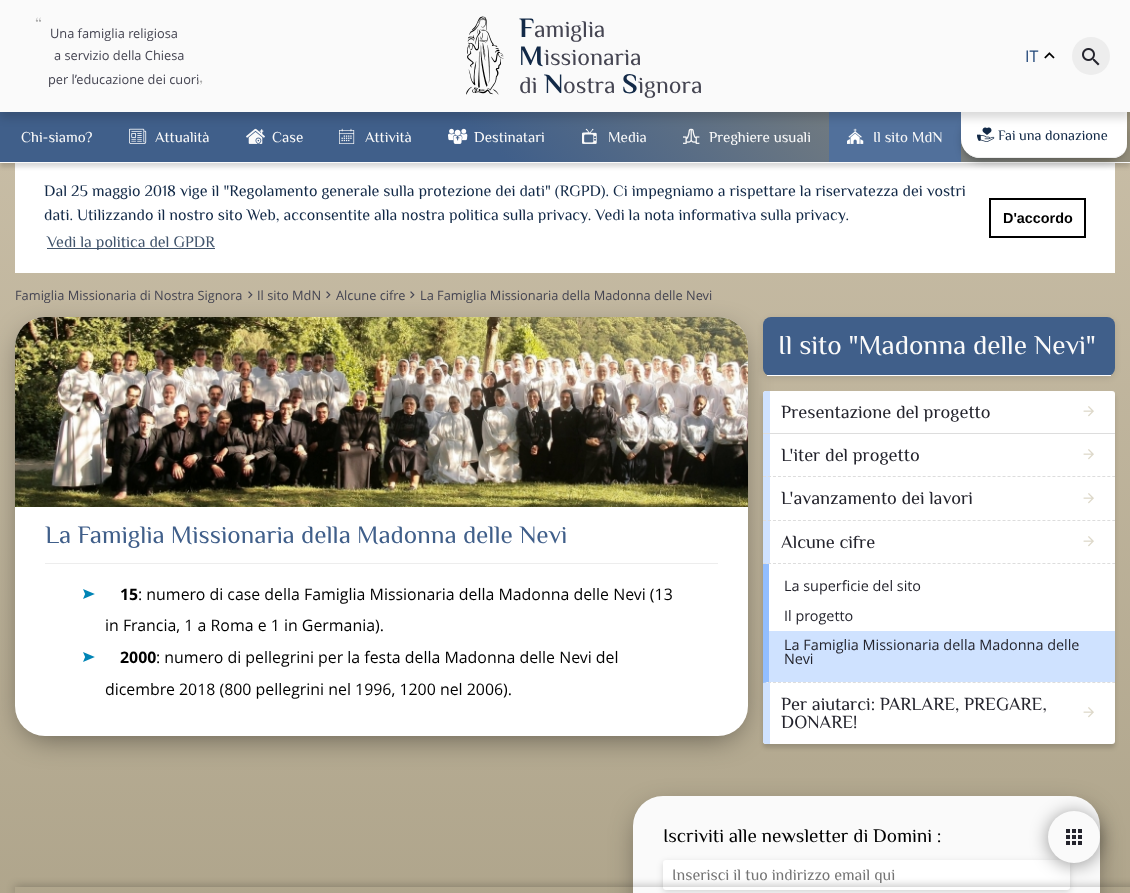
async function draw(canvas) {
	canvas.width = 1130;
	canvas.height = 893;
	const c = canvas.getContext('2d');
	c.miterLimit = 4;
	c.fontKerning = 'normal';
	async function loadImage(src) {
		const img = new Image();
		img.src = src;
		await img.decode();
		return img;
	}
	let gradient;

	c.fillStyle = '#fff';
	c.fillRect(0, 0, 1130, 893);
	gradient = c.createLinearGradient(565, 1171, 565, 0);
	gradient.addColorStop(0, '#a79d83');
	gradient.addColorStop(1, '#ccc1aa');
	c.fillStyle = gradient;
	c.fillRect(0, 163, 1130, 730);
	c.fillStyle = '#fff';
	c.fillRect(15, 163, 1100, 110);
	c.fillStyle = '#00000026';
	c.filter = 'blur(2px)';
	c.beginPath();
	c.rect(0, 116, 1130, 51);
	c.fill();
	c.filter = 'none';
	gradient = c.createLinearGradient(270, 432, 860, -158);
	gradient.addColorStop(0.43, '#405f8a');
	gradient.addColorStop(1, '#989079');
	c.fillStyle = gradient;
	c.fillRect(0, 112, 1130, 50);
	c.drawImage(await loadImage('img4.png'), 129, 128, 18, 16);
	c.drawImage(await loadImage('img5.png'), 246, 128, 19, 16);
	c.drawImage(await loadImage('img6.png'), 339, 128, 16, 16);
	c.drawImage(await loadImage('img7.png'), 448, 128, 20, 16);
	c.drawImage(await loadImage('img8.png'), 582, 128, 15, 16);
	c.drawImage(await loadImage('img9.png'), 683, 128, 17, 16);
	c.fillStyle = '#51709b';
	c.fillRect(829, 112, 132, 50);
	c.drawImage(await loadImage('img10.png'), 847, 128, 17, 16);
	c.fillStyle = '#fafafa';
	c.fillRect(0, 162, 1130, 1);
	c.fillStyle = '#00000066';
	c.filter = 'blur(5px)';
	c.beginPath();
	c.roundRect(964, 120, 160, 40, 16);
	c.fill();
	c.filter = 'none';
	c.fillStyle = '#fff';
	c.beginPath();
	c.roundRect(961, 112, 166, 46, [0, 0, 14, 19]);
	c.fill();
	c.fillStyle = '#ffffff61';
	c.beginPath();
	c.moveTo(1127, 112);
	c.lineTo(1126, 113);
	c.lineTo(1126, 144);
	c.bezierCurveTo(1126, 148, 1124, 151, 1122, 153);
	c.lineTo(1123, 154);
	c.bezierCurveTo(1126, 152, 1127, 148, 1127, 144);
	c.closePath();
	c.fill();
	c.beginPath();
	c.moveTo(962, 113);
	c.lineTo(961, 112);
	c.lineTo(961, 139);
	c.bezierCurveTo(961, 144, 963, 149, 967, 152);
	c.bezierCurveTo(964, 148, 962, 144, 962, 139);
	c.closePath();
	c.fill();
	c.drawImage(await loadImage('img11.png'), 977, 127, 18, 15);
	c.fillStyle = '#00000026';
	c.filter = 'blur(4px)';
	c.beginPath();
	c.rect(0, 6, 1130, 112);
	c.fill();
	c.filter = 'none';
	c.fillStyle = '#fafafa';
	c.fillRect(0, 0, 1130, 112);
	c.font = '17px Philosopher';
	c.fillStyle = '#aaa';
	c.fillText('“', 35, 29);
	c.font = '12.8px Open Sans';
	c.fillStyle = '#454552';
	for (const [text, x, y] of [
		['Una famiglia religiosa', 50, 38],
		['a servizio della Chiesa', 54, 60],
		['per l’educazione dei cuori', 48, 84],
	]) {
		c.fillText(text, x, y);
	}
	c.font = '17px Philosopher';
	c.fillStyle = '#aaa';
	c.fillText('”', 196, 92);
	c.drawImage(await loadImage('img1.png'), 466, 16, 38, 79);
	c.font = 'bold 28px Philosopher';
	c.fillStyle = '#122947';
	c.fillText('F', 519, 37);
	c.font = '24px Philosopher';
	c.fillStyle = '#454552';
	c.fillText('amiglia', 534, 37);
	c.font = 'bold 28px Philosopher';
	c.fillStyle = '#122947';
	c.fillText('M', 519, 65);
	c.font = '24px Philosopher';
	c.fillStyle = '#454552';
	c.fillText('issionaria', 544, 65);
	c.fillText('di', 519, 93);
	c.font = 'bold 28px Philosopher';
	c.fillStyle = '#122947';
	c.fillText('N', 544, 93);
	c.font = '24px Philosopher';
	c.fillStyle = '#454552';
	c.fillText('ostra', 563, 93);
	c.font = 'bold 28px Philosopher';
	c.fillStyle = '#122947';
	c.fillText('S', 622, 93);
	c.font = '24px Philosopher';
	c.fillStyle = '#454552';
	c.fillText('ignora', 638, 93);
	c.font = '16px Open Sans';
	c.fillStyle = '#204678';
	c.fillText('IT', 1025, 62);
	c.drawImage(await loadImage('img2.png'), 1044, 52, 11, 7);
	c.fillStyle = '#ededed';
	c.beginPath();
	c.arc(1091, 56, 19, 0, 2 * Math.PI);
	c.fill();
	c.drawImage(await loadImage('img3.png'), 1082, 48, 18, 18);
	c.font = '15px Philosopher';
	c.fillStyle = '#fafafa';
	for (const [text, x, y] of [
		['Chi-siamo?', 21, 142],
		['Attualità', 155, 142],
		['Case', 272, 142],
		['Attività', 365, 142],
		['Destinatari', 474, 142],
		['Media', 608, 142],
		['Preghiere usuali', 709, 142],
		['Il sito MdN', 873, 142],
	]) {
		c.fillText(text, x, y);
	}
	c.fillStyle = '#eee';
	c.beginPath();
	c.moveTo(980, 158);
	c.lineTo(1113, 158);
	c.bezierCurveTo(1117, 158, 1120, 156, 1123, 154);
	c.lineTo(1122, 153);
	c.bezierCurveTo(1120, 156, 1116, 157, 1113, 157);
	c.lineTo(980, 157);
	c.bezierCurveTo(975, 157, 970, 155, 967, 152);
	c.bezierCurveTo(970, 156, 975, 158, 980, 158);
	c.closePath();
	c.fill();
	c.font = '14.4px Philosopher';
	c.fillStyle = '#122947';
	c.fillText('Fai una donazione', 998, 140);
	c.font = '16px Philosopher';
	c.fillText('Dal 25 maggio 2018 vige il "Regolamento generale sulla protezione dei dati" (RGPD). Ci impegniamo a rispettare la riservatezza dei vostri', 44, 196);
	c.fillText('dati. Utilizzando il nostro sito Web, acconsentite alla nostra politica sulla privacy. Vedi la nota informativa sulla privacy.', 44, 220);
	c.fillStyle = '#41546c';
	c.fillRect(47, 248, 168, 1);
	c.fillText('Vedi la politica del GPDR', 47, 247);
	c.strokeStyle = '#000';
	c.lineWidth = 2;
	c.strokeRect(990, 199, 95, 38);
	c.font = 'bold 14.4px Liberation Sans';
	c.fillStyle = '#000';
	c.fillText('D\'accordo', 1003, 223);
	c.font = '12.8px Open Sans';
	c.fillStyle = '#454552';
	c.fillText('Famiglia Missionaria di Nostra Signora', 15, 300);
	c.drawImage(await loadImage('img12.png'), 248, 291, 5, 8);
	c.fillText('Il sito MdN', 257, 300);
	c.drawImage(await loadImage('img12.png'), 326, 291, 5, 8);
	c.fillText('Alcune cifre', 336, 300);
	c.drawImage(await loadImage('img12.png'), 410, 291, 5, 8);
	c.fillText('La Famiglia Missionaria della Madonna delle Nevi', 420, 300);
	c.fillStyle = '#00000080';
	c.filter = 'blur(15px)';
	c.beginPath();
	c.roundRect(23, 333, 717, 403, 22);
	c.fill();
	c.filter = 'none';
	c.fillStyle = '#fff';
	c.beginPath();
	c.roundRect(15, 317, 733, 419, 30);
	c.fill();
	c.drawImage(await loadImage('img13.png'), 15, 317, 733, 190);
	c.fillStyle = '#0000000d';
	c.fillRect(15, 505, 733, 2);
	c.fillStyle = '#ededed';
	c.fillRect(45, 563, 673, 1);
	c.font = '25.2px Philosopher';
	c.fillStyle = '#405f8a';
	c.fillText('La Famiglia Missionaria della Madonna delle Nevi', 45, 543);
	c.drawImage(await loadImage('img14.png'), 83, 589, 12, 10);
	c.font = 'bold 15.9px Open Sans';
	c.fillStyle = '#000';
	c.fillText('15', 120, 600);
	c.font = '15.9px Open Sans';
	c.fillText(': numero di case della Famiglia Missionaria della Madonna delle Nevi (13', 138, 600);
	c.fillText('in Francia, 1 a Roma e 1 in Germania).', 105, 631);
	c.drawImage(await loadImage('img14.png'), 83, 652, 12, 10);
	c.font = 'bold 15.9px Open Sans';
	c.fillText('2000', 120, 663);
	c.font = '15.9px Open Sans';
	c.fillText(': numero di pellegrini per la festa della Madonna delle Nevi del', 156, 663);
	c.fillText('dicembre 2018 (800 pellegrini nel 1996, 1200 nel 2006).', 105, 695);
	c.fillStyle = '#0000001a';
	c.filter = 'blur(3px)';
	c.beginPath();
	c.roundRect(763, 319, 352, 59, 8);
	c.fill();
	c.filter = 'none';
	c.fillStyle = '#405f8a';
	c.beginPath();
	c.roundRect(763, 317, 352, 59, 8);
	c.fill();
	c.fillStyle = '#fff';
	c.fillRect(767, 375, 344, 1);
	c.font = '27.25px Philosopher';
	c.fillStyle = '#fafafa';
	c.fillText('Il sito "Madonna delle Nevi"', 778, 354);
	c.fillStyle = '#00000026';
	c.filter = 'blur(2px)';
	c.beginPath();
	c.roundRect(763, 395, 352, 353, 3);
	c.fill();
	c.filter = 'none';
	c.fillStyle = '#fff';
	c.beginPath();
	c.roundRect(763, 391, 352, 353, 3);
	c.fill();
	c.fillStyle = '#cfe2ff';
	c.beginPath();
	c.roundRect(763, 391, 7, 43, [3, 0, 0, 0]);
	c.fill();
	c.fillStyle = '#ddd';
	c.fillRect(763, 433, 352, 1);
	c.font = '18.4px Philosopher';
	c.fillStyle = '#24242d';
	c.fillText('Presentazione del progetto', 781, 418);
	c.drawImage(await loadImage('img15.png'), 1083, 406, 11, 11);
	c.fillStyle = '#cfe2ff';
	c.fillRect(763, 434, 7, 130);
	c.beginPath();
	c.moveTo(763, 476.5);
	c.lineTo(1115, 476.5);
	c.strokeStyle = '#ddd';
	c.lineWidth = 1;
	c.setLineDash([3, 1.99]);
	c.stroke();
	c.fillStyle = '#24242d';
	c.fillText('L\'iter del progetto', 781, 461);
	c.drawImage(await loadImage('img15.png'), 1083, 449, 11, 11);
	c.beginPath();
	c.moveTo(763, 520.5);
	c.lineTo(1115, 520.5);
	c.stroke();
	c.fillText('L\'avanzamento dei lavori', 781, 504);
	c.drawImage(await loadImage('img15.png'), 1083, 493, 11, 11);
	c.beginPath();
	c.moveTo(763, 563.5);
	c.lineTo(1115, 563.5);
	c.stroke();
	c.fillText('Alcune cifre', 781, 548);
	c.drawImage(await loadImage('img15.png'), 1083, 536, 11, 11);
	c.beginPath();
	c.moveTo(763, 682.5);
	c.lineTo(1115, 682.5);
	c.stroke();
	c.fillStyle = '#92beff';
	c.beginPath();
	c.moveTo(763, 683);
	c.lineTo(763, 564);
	c.lineTo(769, 564);
	c.lineTo(769, 682);
	c.closePath();
	c.fill();
	c.font = '14.4px Open Sans';
	c.fillStyle = '#24242d';
	c.fillText('La superficie del sito', 784, 591);
	c.fillText('Il progetto', 784, 621);
	c.fillStyle = '#cfe2ff';
	c.fillRect(769, 631, 346, 51);
	c.fillStyle = '#24242d';
	c.fillText('La Famiglia Missionaria della Madonna delle', 784, 650);
	c.fillText('Nevi', 784, 664);
	c.fillStyle = '#cfe2ff';
	c.beginPath();
	c.roundRect(763, 683, 7, 61, [0, 0, 0, 3]);
	c.fill();
	c.font = '18.4px Philosopher';
	c.fillStyle = '#24242d';
	c.fillText('Per aiutarci: PARLARE, PREGARE,', 781, 710);
	c.fillText('DONARE!', 781, 728);
	c.drawImage(await loadImage('img15.png'), 1083, 707, 11, 11);
	c.fillStyle = '#00000080';
	c.filter = 'blur(15px)';
	c.beginPath();
	c.roundRect(641, 812, 451, 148, 22);
	c.fill();
	c.filter = 'none';
	c.fillStyle = '#fafafa';
	c.beginPath();
	c.roundRect(633, 796, 467, 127, 30);
	c.fill();
	c.fillStyle = '#00000026';
	c.filter = 'blur(3px)';
	c.beginPath();
	c.roundRect(663, 862, 407, 30, 3);
	c.fill();
	c.filter = 'none';
	c.fillStyle = '#fff';
	c.beginPath();
	c.roundRect(663, 860, 407, 30, 3);
	c.fill();
	c.save();
	c.beginPath();
	c.moveTo(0, 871);
	c.lineTo(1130, 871);
	c.lineTo(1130, 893);
	c.lineTo(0, 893);
	c.closePath();
	c.moveTo(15, 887);
	c.lineTo(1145, 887);
	c.lineTo(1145, 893);
	c.lineTo(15, 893);
	c.closePath();
	c.clip('evenodd');
	c.fillStyle = '#00000059';
	c.filter = 'blur(5px)';
	c.beginPath();
	c.rect(15, 887, 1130, 6);
	c.fill();
	c.filter = 'none';
	c.restore();
	c.font = '19.25px Philosopher';
	c.fillStyle = '#000';
	c.fillText('Iscriviti alle newsletter di Domini :', 663, 842);
	c.font = '16px Philosopher';
	c.fillStyle = '#757575';
	c.fillText('Inserisci il tuo indirizzo email qui', 672, 880);
	c.fillStyle = '#00000066';
	c.filter = 'blur(9px)';
	c.beginPath();
	c.roundRect(1048, 813, 52, 52, 26);
	c.fill();
	c.filter = 'none';
	c.fillStyle = '#fafafa';
	c.beginPath();
	c.arc(1074, 837, 26, 0, 2 * Math.PI);
	c.fill();
	c.drawImage(await loadImage('img16.png'), 1066, 829, 16, 16);
}

draw(document.querySelector('canvas'));
